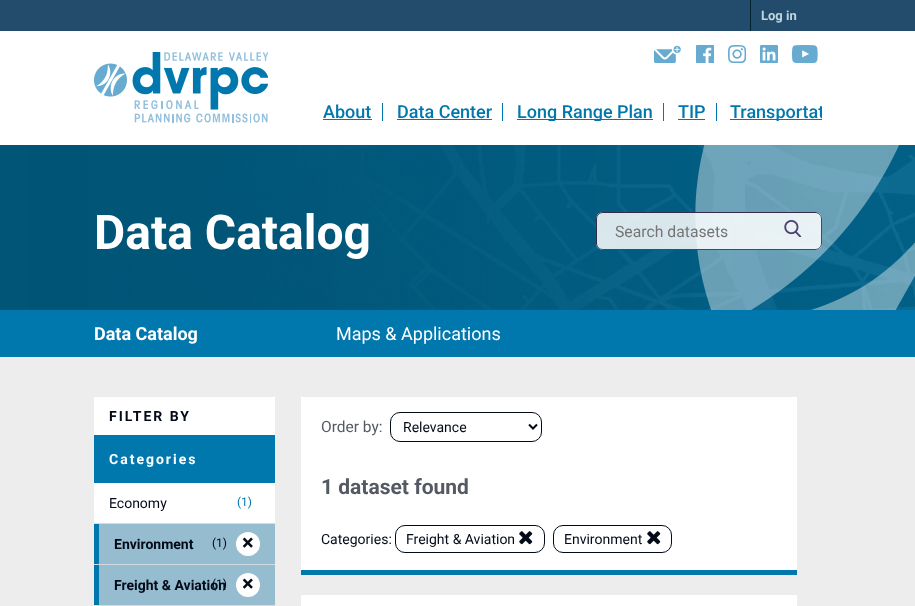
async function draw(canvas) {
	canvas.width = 915;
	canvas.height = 606;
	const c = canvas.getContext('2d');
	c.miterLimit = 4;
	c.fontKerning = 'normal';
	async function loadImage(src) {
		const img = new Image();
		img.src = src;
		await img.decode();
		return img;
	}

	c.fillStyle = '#fff';
	c.fillRect(0, 0, 915, 606);
	c.fillStyle = '#234c6c';
	c.fillRect(0, 0, 915, 31);
	c.fillStyle = '#00232e';
	c.fillRect(750, 0, 1, 31);
	c.font = 'bold 13px Roboto';
	c.fillStyle = '#bfd7de';
	c.fillText('Log in', 761, 20);
	c.drawImage(await loadImage('img1.png'), 94, 52, 174, 71);
	c.drawImage(await loadImage('img2.png'), 654, 45, 27, 18);
	c.drawImage(await loadImage('img3.png'), 696, 45, 18, 18);
	c.drawImage(await loadImage('img4.png'), 728, 45, 18, 18);
	c.drawImage(await loadImage('img5.png'), 760, 45, 18, 18);
	c.drawImage(await loadImage('img6.png'), 792, 45, 26, 18);
	c.font = '500 18px Roboto';
	c.fillStyle = '#0078ae';
	c.fillText('About', 323, 118);
	c.fillRect(323, 119, 49, 1);
	c.fillRect(382, 103, 1, 18);
	c.fillText('Data Center', 397, 118);
	for (const [x, y, w, h, color] of [
		[397, 119, 95, 1, '#0078ae'],
		[502, 103, 1, 18, '#0078ae'],
		[517, 119, 136, 1, '#0078ae'],
	]) {
		c.fillStyle = color;
		c.fillRect(x, y, w, h);
	}
	c.save();
	c.beginPath();
	c.rect(310, 103, 512, 18);
	c.clip();
	c.fillText('Long Range Plan', 517, 118);
	c.restore();
	c.fillRect(663, 103, 1, 18);
	c.fillText('TIP', 678, 118);
	for (const [x, y, w, h, color] of [
		[678, 119, 27, 1, '#0078ae'],
		[716, 103, 1, 18, '#0078ae'],
		[730, 119, 92, 1, '#0078ae'],
	]) {
		c.fillStyle = color;
		c.fillRect(x, y, w, h);
	}
	c.save();
	c.beginPath();
	c.rect(310, 103, 512, 18);
	c.clip();
	c.fillText('Transportat', 730, 118);
	c.restore();
	c.drawImage(await loadImage('img7.png'), 0, 145, 915, 165);
	c.font = 'bold 48px Roboto';
	c.fillStyle = '#fff';
	c.fillText('Data Catalog', 94, 249);
	c.drawImage(await loadImage('img9.png'), 695, 145, 220, 165);
	c.fillStyle = '#ffffffd9';
	c.beginPath();
	c.roundRect(596, 212, 226, 38, 7);
	c.fill();
	c.beginPath();
	c.moveTo(819.5, 214.5);
	c.bezierCurveTo(821, 215.5, 821.5, 217.5, 821.5, 219);
	c.lineTo(821.5, 243);
	c.bezierCurveTo(821.5, 244.5, 821, 246.5, 819.5, 247.5);
	c.bezierCurveTo(818.5, 249, 816.5, 249.5, 815, 249.5);
	c.lineTo(603, 249.5);
	c.bezierCurveTo(601.5, 249.5, 599.5, 249, 598.5, 247.5);
	c.strokeStyle = '#4b4271';
	c.stroke();
	c.beginPath();
	c.moveTo(598.5, 247.5);
	c.bezierCurveTo(597, 246.5, 596.5, 244.5, 596.5, 243);
	c.lineTo(596.5, 219);
	c.bezierCurveTo(596.5, 217.5, 597, 215.5, 598.5, 214.5);
	c.bezierCurveTo(599.5, 213, 601.5, 212.5, 603, 212.5);
	c.lineTo(815, 212.5);
	c.bezierCurveTo(816.5, 212.5, 818.5, 213, 819.5, 214.5);
	c.strokeStyle = '#322c4b';
	c.stroke();
	c.font = '15.75px Roboto';
	c.fillStyle = '#757575';
	c.fillText('Search datasets', 615, 237);
	c.drawImage(await loadImage('img8.png'), 784, 220, 18, 17);
	c.fillStyle = '#0078ae';
	c.fillRect(0, 310, 915, 47);
	c.font = 'bold 18px Roboto';
	c.fillStyle = '#fff';
	c.fillText('Data Catalog', 94, 340);
	c.font = '18px Roboto';
	c.fillText('Maps & Applications', 336, 340);
	c.fillStyle = '#ededed';
	c.fillRect(0, 357, 915, 249);
	c.fillStyle = '#fff';
	c.fillRect(94, 397, 181, 38);
	c.letterSpacing = '2px';
	c.font = 'bold 14px Roboto';
	c.fillStyle = '#030a18';
	c.fillText('FILTER BY', 109, 421);
	c.fillStyle = '#0078ae';
	c.fillRect(94, 435, 181, 48);
	c.fillStyle = '#fff';
	c.fillText('Categories', 109, 464);
	c.fillRect(94, 483, 181, 40);
	c.fillStyle = '#d1dbe1';
	c.fillRect(94, 523, 181, 1);
	c.letterSpacing = '0px';
	c.font = '14px Roboto';
	c.fillStyle = '#030a18';
	c.fillText('Economy', 109, 508);
	c.font = '12px Roboto';
	c.fillStyle = '#0078ae';
	c.fillText('(1)', 237, 506);
	for (const [x, y, w, h, color] of [
		[94, 564, 181, 1, '#d1dbe1'],
		[99, 524, 176, 40, '#96bcd0'],
		[94, 524, 5, 40, '#0078ae'],
	]) {
		c.fillStyle = color;
		c.fillRect(x, y, w, h);
	}
	c.font = 'bold 14px Roboto';
	c.fillStyle = '#030a18';
	c.fillText('Environment', 114, 549);
	c.font = '12px Roboto';
	c.fillText('(1)', 212, 547);
	c.fillStyle = '#fff';
	c.beginPath();
	c.arc(248, 544, 12, 0, 2 * Math.PI);
	c.fill();
	c.font = 'bold 22px Roboto';
	c.fillStyle = '#030a18';
	c.fillText('×', 242, 550);
	for (const [x, y, w, h, color] of [
		[94, 605, 181, 1, '#d1dbe1'],
		[99, 565, 176, 40, '#96bcd0'],
		[94, 565, 5, 40, '#0078ae'],
	]) {
		c.fillStyle = color;
		c.fillRect(x, y, w, h);
	}
	c.font = 'bold 14px Roboto';
	c.fillStyle = '#030a18';
	c.fillText('Freight & Aviation', 114, 590);
	c.font = '12px Roboto';
	c.fillText('(1)', 212, 588);
	c.fillStyle = '#fff';
	c.beginPath();
	c.arc(248, 585, 12, 0, 2 * Math.PI);
	c.fill();
	c.font = 'bold 22px Roboto';
	c.fillStyle = '#030a18';
	c.fillText('×', 242, 591);
	c.fillStyle = '#fff';
	c.fillRect(301, 397, 496, 173);
	c.fillStyle = '#0078ae';
	c.fillRect(301, 570, 496, 5);
	c.font = '15.5px Roboto';
	c.fillStyle = '#545963';
	c.fillText('Order by:', 321, 432);
	c.beginPath();
	c.roundRect(390.5, 412.5, 151, 29, 9.5);
	c.strokeStyle = '#030a18';
	c.stroke();
	c.beginPath();
	c.moveTo(529, 424.5);
	c.lineTo(533, 428.5);
	c.lineTo(537, 424.5);
	c.lineWidth = 2;
	c.stroke();
	c.font = '14px Roboto';
	c.fillStyle = '#030a18';
	c.fillText('Relevance', 403, 432);
	c.font = 'bold 21px Roboto';
	c.fillStyle = '#545963';
	c.fillText('1 dataset found', 321, 494);
	c.font = '14px Roboto';
	c.fillStyle = '#030a18';
	c.fillText('Categories:', 321, 544);
	c.beginPath();
	c.roundRect(395.5, 525.5, 149, 27, 9.5);
	c.lineWidth = 1;
	c.stroke();
	c.fillText('Freight & Aviation', 406, 544);
	c.drawImage(await loadImage('img10.png'), 519, 531, 14, 14);
	c.beginPath();
	c.roundRect(553.5, 525.5, 118, 27, 9.5);
	c.stroke();
	c.fillText('Environment', 564, 544);
	c.drawImage(await loadImage('img10.png'), 647, 531, 14, 14);
	c.fillStyle = '#fff';
	c.fillRect(301, 595, 496, 11);
}

draw(document.querySelector('canvas'));
